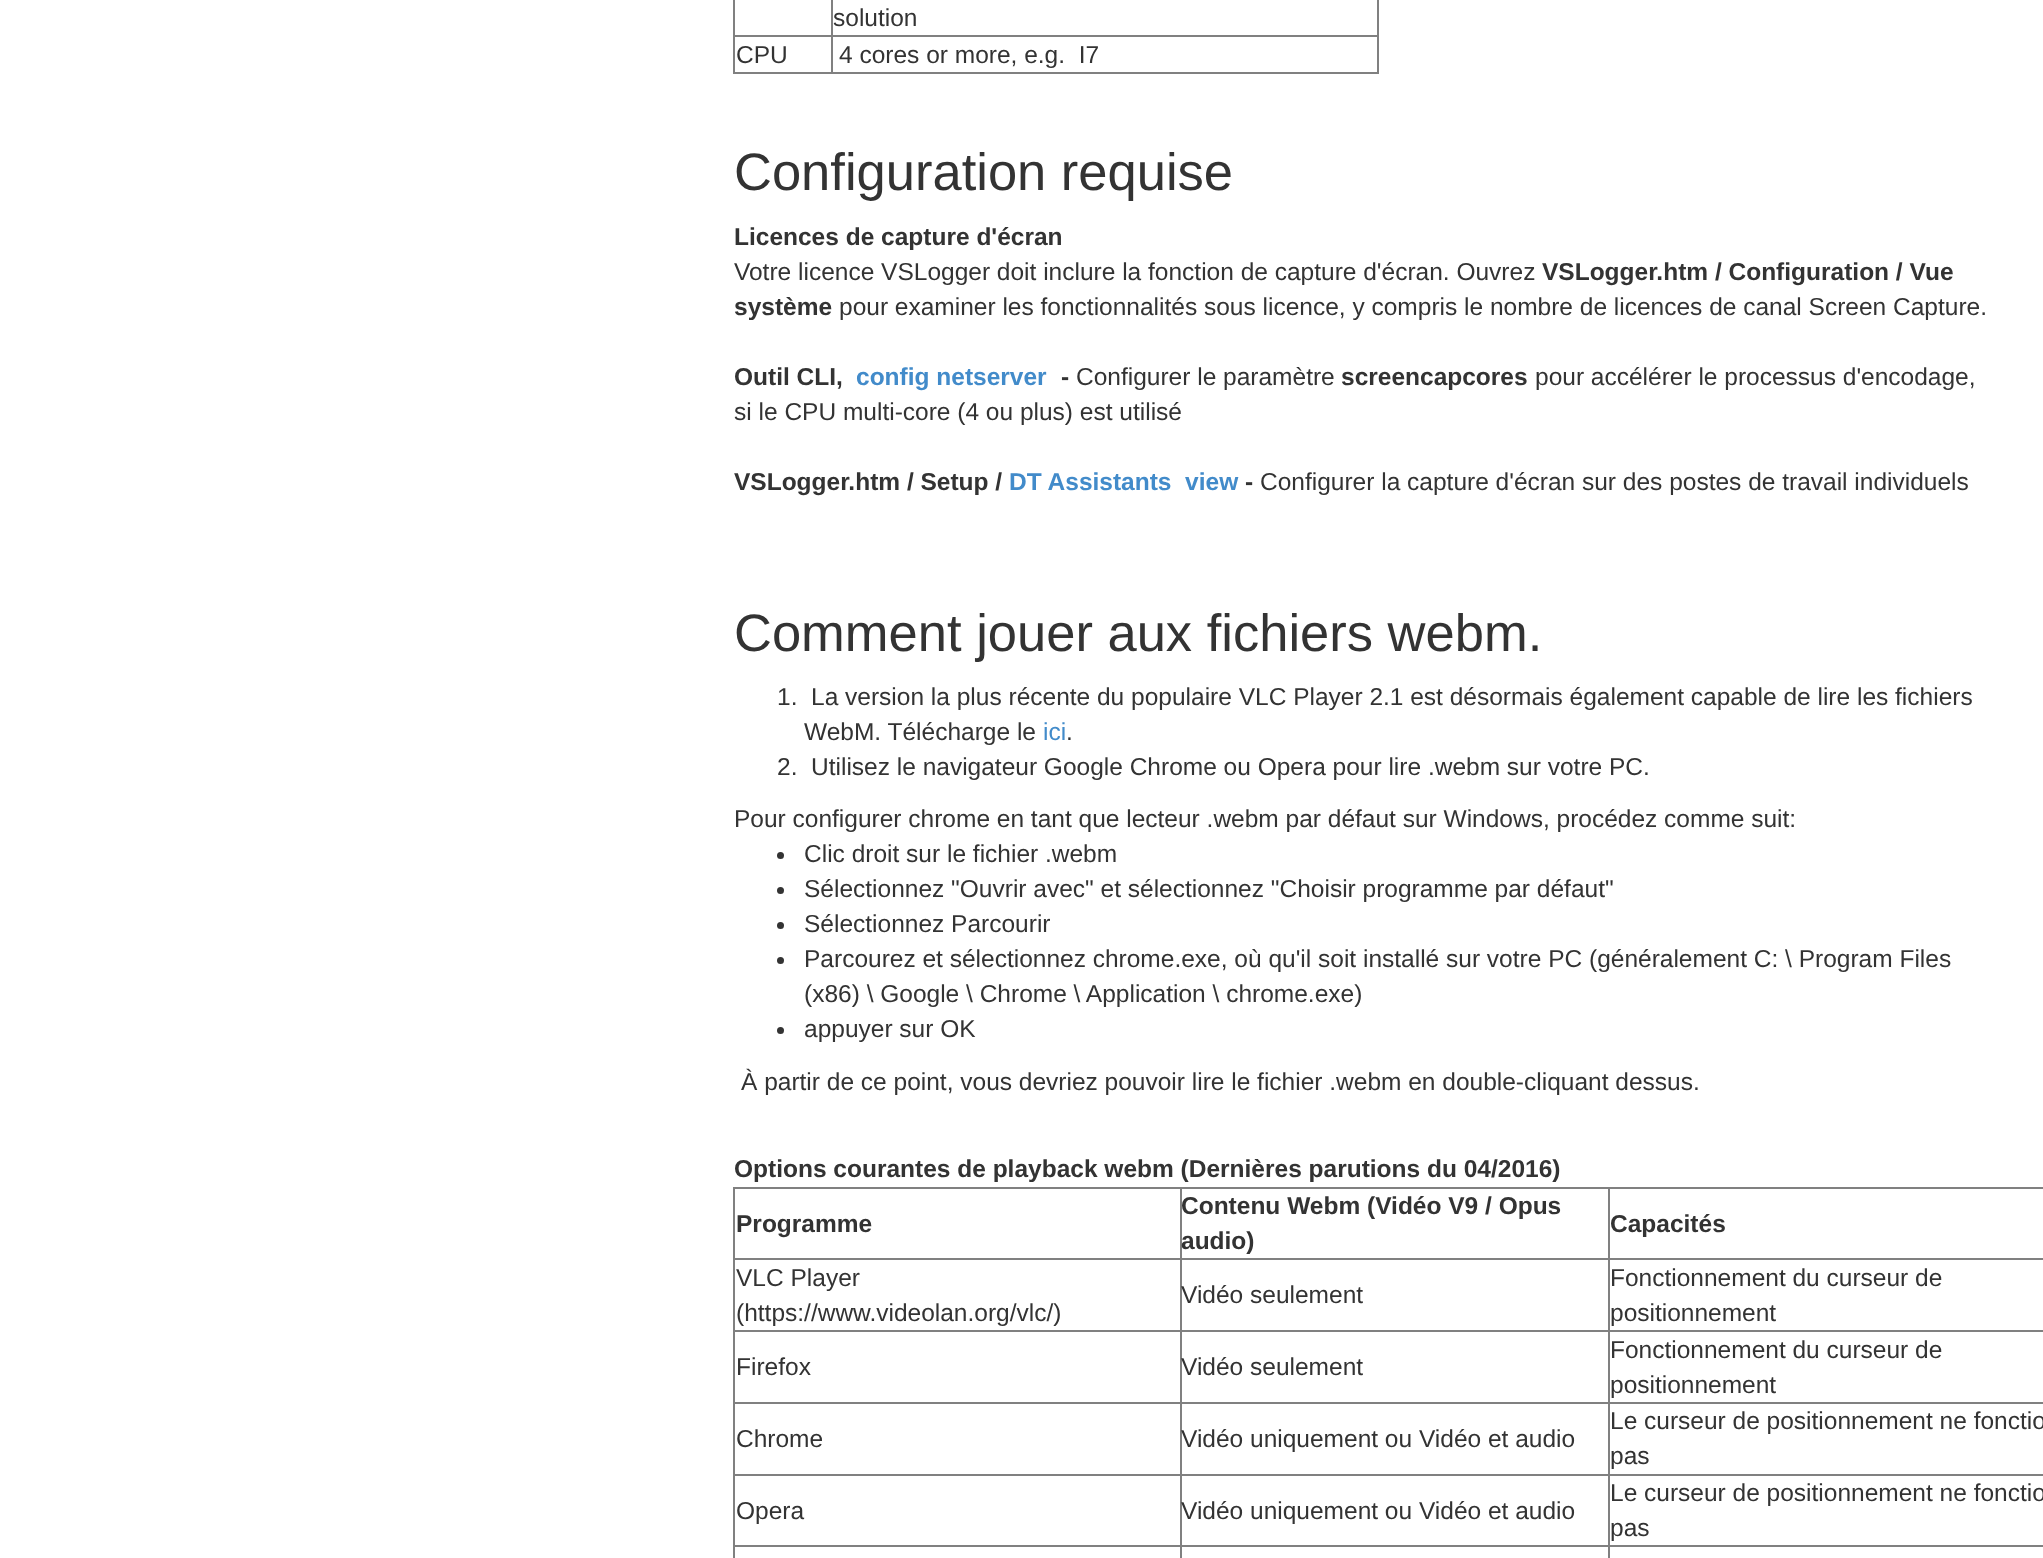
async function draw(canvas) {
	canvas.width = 2043;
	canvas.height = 1558;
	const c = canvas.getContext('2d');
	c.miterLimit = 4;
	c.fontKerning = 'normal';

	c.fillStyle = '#fff';
	c.fillRect(0, 0, 2043, 1558);
	for (const [x, y, w, h, color] of [
		[1377, 0, 2, 74, '#808080'],
		[733, 72, 646, 2, '#808080'],
		[733, 0, 2, 74, '#808080'],
		[831, 35, 548, 2, '#808080'],
		[831, 35, 2, 39, '#808080'],
		[733, 35, 100, 2, '#808080'],
		[831, 0, 2, 37, '#808080'],
	]) {
		c.fillStyle = color;
		c.fillRect(x, y, w, h);
	}
	c.font = '24.5px Liberation Sans';
	c.fillStyle = '#333';
	for (const [text, x, y] of [
		['solution', 833, 26],
		['CPU', 736, 63],
		['4 cores or more, e.g.  I7', 839, 63],
	]) {
		c.fillText(text, x, y);
	}
	c.font = '52.5px Liberation Sans';
	c.fillText('Configuration requise', 734, 190);
	c.font = 'bold 24.5px Liberation Sans';
	c.fillText('Licences de capture d\'écran', 734, 245);
	c.font = '24.5px Liberation Sans';
	c.fillText('Votre licence VSLogger doit inclure la fonction de capture d\'écran. Ouvrez', 734, 280);
	c.font = 'bold 24.5px Liberation Sans';
	c.fillText('VSLogger.htm / Configuration / Vue', 1542, 280);
	c.fillText('système', 734, 315);
	c.font = '24.5px Liberation Sans';
	c.fillText('pour examiner les fonctionnalités sous licence, y compris le nombre de licences de canal Screen Capture.', 839, 315);
	c.font = 'bold 24.5px Liberation Sans';
	c.fillText('Outil CLI,', 734, 385);
	c.fillStyle = '#428bca';
	c.fillText('config netserver', 856, 385);
	c.fillStyle = '#333';
	c.fillText('-', 1061, 385);
	c.font = '24.5px Liberation Sans';
	c.fillText('Configurer le paramètre', 1076, 385);
	c.font = 'bold 24.5px Liberation Sans';
	c.fillText('screencapcores', 1341, 385);
	c.font = '24.5px Liberation Sans';
	c.fillText('pour accélérer le processus d\'encodage,', 1535, 385);
	c.fillText('si le CPU multi-core (4 ou plus) est utilisé', 734, 420);
	c.font = 'bold 24.5px Liberation Sans';
	c.fillText('VSLogger.htm / Setup /', 734, 490);
	c.fillStyle = '#428bca';
	c.fillText('DT Assistants  view', 1009, 490);
	c.fillStyle = '#333';
	c.fillText('-', 1245, 490);
	c.font = '24.5px Liberation Sans';
	c.fillText('Configurer la capture d\'écran sur des postes de travail individuels', 1260, 490);
	c.font = '52.5px Liberation Sans';
	c.fillText('Comment jouer aux fichiers webm.', 734, 651);
	c.font = '24.5px Liberation Sans';
	for (const [text, x, y] of [
		['1.', 777, 705],
		['La version la plus récente du populaire VLC Player 2.1 est désormais également capable de lire les fichiers', 811, 705],
		['WebM. Télécharge le', 804, 740],
	]) {
		c.fillText(text, x, y);
	}
	c.fillStyle = '#428bca';
	c.fillText('ici', 1043, 740);
	c.fillStyle = '#333';
	for (const [text, x, y] of [
		['.', 1066, 740],
		['2.', 777, 775],
		['Utilisez le navigateur Google Chrome ou Opera pour lire .webm sur votre PC.', 811, 775],
		['Pour configurer chrome en tant que lecteur .webm par défaut sur Windows, procédez comme suit:', 734, 827],
	]) {
		c.fillText(text, x, y);
	}
	c.beginPath();
	c.arc(780.5, 855.5, 3.5, 0, 2 * Math.PI);
	c.fill();
	c.fillText('Clic droit sur le fichier .webm', 804, 862);
	c.beginPath();
	c.arc(780.5, 890.5, 3.5, 0, 2 * Math.PI);
	c.fill();
	c.fillText('Sélectionnez "Ouvrir avec" et sélectionnez "Choisir programme par défaut"', 804, 897);
	c.beginPath();
	c.arc(780.5, 925.5, 3.5, 0, 2 * Math.PI);
	c.fill();
	c.fillText('Sélectionnez Parcourir', 804, 932);
	c.beginPath();
	c.arc(780.5, 960.5, 3.5, 0, 2 * Math.PI);
	c.fill();
	c.fillText('Parcourez et sélectionnez chrome.exe, où qu\'il soit installé sur votre PC (généralement C: \\ Program Files', 804, 967);
	c.fillText('(x86) \\ Google \\ Chrome \\ Application \\ chrome.exe)', 804, 1002);
	c.beginPath();
	c.arc(780.5, 1030.5, 3.5, 0, 2 * Math.PI);
	c.fill();
	c.fillText('appuyer sur OK', 804, 1037);
	c.fillText('À partir de ce point, vous devriez pouvoir lire le fichier .webm en double-cliquant dessus.', 741, 1090);
	c.font = 'bold 24.5px Liberation Sans';
	c.fillText('Options courantes de playback webm (Dernières parutions du 04/2016)', 734, 1177);
	c.fillStyle = '#808080';
	c.fillRect(733, 1187, 1310, 2);
	c.fillRect(733, 1187, 2, 371);
	c.fillStyle = '#333';
	c.fillText('Programme', 736, 1232);
	for (const [x, y, w, h, color] of [
		[1608, 1258, 435, 2, '#808080'],
		[1608, 1330, 435, 2, '#808080'],
		[1608, 1402, 435, 2, '#808080'],
		[1608, 1474, 435, 2, '#808080'],
		[1608, 1545, 435, 2, '#808080'],
		[1608, 1545, 2, 13, '#808080'],
		[1180, 1545, 430, 2, '#808080'],
		[1608, 1474, 2, 73, '#808080'],
		[1180, 1474, 430, 2, '#808080'],
		[1608, 1402, 2, 73, '#808080'],
		[1180, 1402, 430, 2, '#808080'],
		[1608, 1330, 2, 74, '#808080'],
		[1180, 1330, 430, 2, '#808080'],
		[1608, 1258, 2, 74, '#808080'],
		[1180, 1258, 430, 2, '#808080'],
		[1180, 1545, 2, 13, '#808080'],
		[733, 1545, 448, 2, '#808080'],
		[1180, 1474, 2, 73, '#808080'],
		[733, 1474, 448, 2, '#808080'],
		[1180, 1402, 2, 73, '#808080'],
		[733, 1402, 448, 2, '#808080'],
		[1180, 1330, 2, 74, '#808080'],
		[733, 1330, 448, 2, '#808080'],
		[1180, 1258, 2, 74, '#808080'],
		[733, 1258, 448, 2, '#808080'],
		[1180, 1187, 2, 73, '#808080'],
	]) {
		c.fillStyle = color;
		c.fillRect(x, y, w, h);
	}
	c.fillStyle = '#333';
	c.fillText('Contenu Webm (Vidéo V9 / Opus', 1181, 1214);
	c.fillText('audio)', 1181, 1249);
	c.fillStyle = '#808080';
	c.fillRect(1608, 1187, 2, 73);
	c.fillStyle = '#333';
	c.fillText('Capacités', 1610, 1232);
	c.font = '24.5px Liberation Sans';
	for (const [text, x, y] of [
		['VLC Player', 736, 1286],
		['(https://www.videolan.org/vlc/)', 736, 1321],
		['Vidéo seulement', 1181, 1303],
		['Fonctionnement du curseur de', 1610, 1286],
		['positionnement', 1610, 1321],
		['Firefox', 736, 1375],
		['Vidéo seulement', 1181, 1375],
		['Fonctionnement du curseur de', 1610, 1358],
		['positionnement', 1610, 1393],
		['Chrome', 736, 1447],
		['Vidéo uniquement ou Vidéo et audio', 1181, 1447],
		['Le curseur de positionnement ne fonctio', 1610, 1429],
		['pas', 1610, 1464],
		['Opera', 736, 1519],
		['Vidéo uniquement ou Vidéo et audio', 1181, 1519],
		['Le curseur de positionnement ne fonctio', 1610, 1501],
		['pas', 1610, 1536],
	]) {
		c.fillText(text, x, y);
	}
}

draw(document.querySelector('canvas'));
